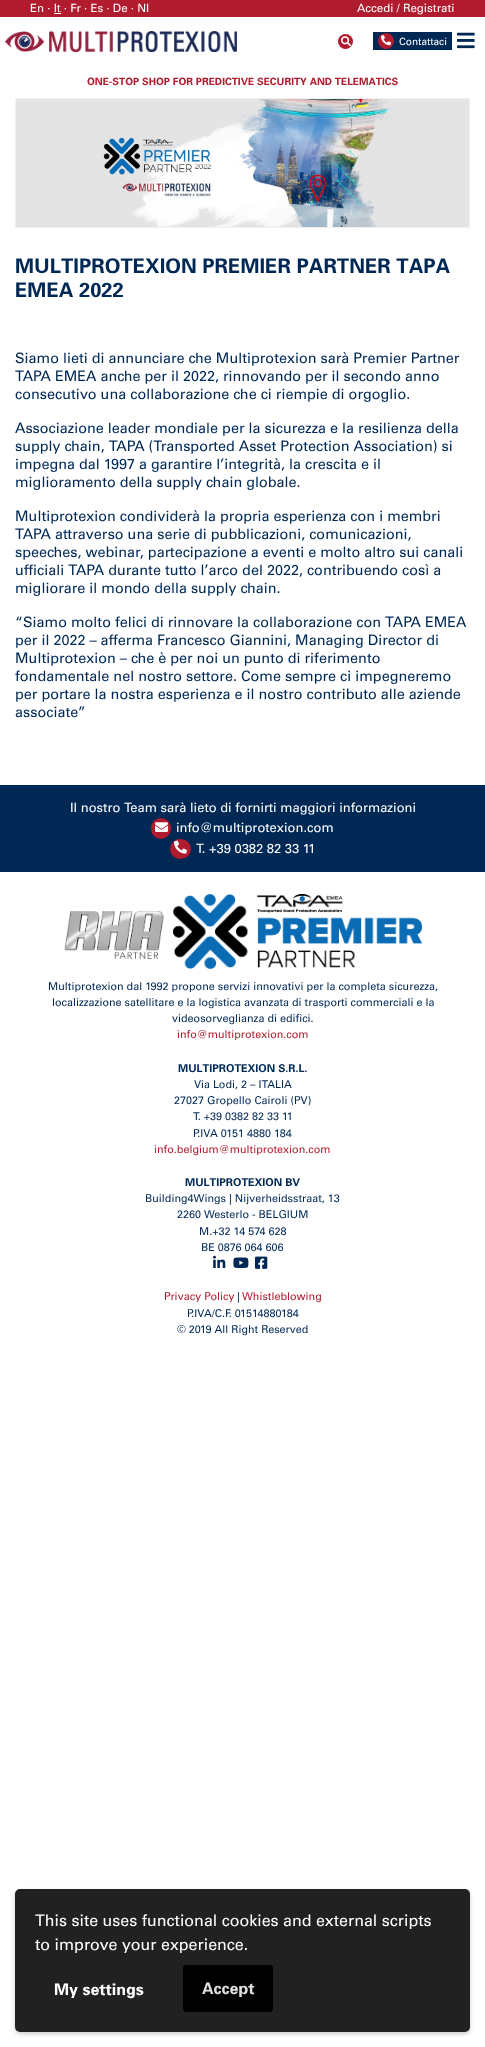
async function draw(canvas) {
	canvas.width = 485;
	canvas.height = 2047;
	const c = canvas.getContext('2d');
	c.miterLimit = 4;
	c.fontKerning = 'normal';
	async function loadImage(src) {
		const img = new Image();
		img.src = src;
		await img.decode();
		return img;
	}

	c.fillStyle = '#fff';
	c.fillRect(0, 0, 485, 2047);
	c.fillStyle = '#b01c2e';
	c.fillRect(0, 0, 485, 17);
	c.font = '11.5px "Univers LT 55"';
	c.fillStyle = '#fff';
	c.fillText('En · It · Fr · Es · De · Nl', 30, 12);
	c.fillRect(54, 13, 7, 1);
	c.fillText('Accedi / Registrati', 357, 12);
	c.drawImage(await loadImage('img1.png'), 5, 31, 232, 21);
	c.fillStyle = '#b01c2e';
	c.beginPath();
	c.arc(345.5, 41.5, 7.5, 0, 2 * Math.PI);
	c.fill();
	c.drawImage(await loadImage('img2.png'), 341, 36, 10, 11);
	c.fillStyle = '#002855';
	c.fillRect(373, 32, 79, 18);
	c.fillStyle = '#b01c2e';
	c.beginPath();
	c.arc(386, 41, 8, 0, 2 * Math.PI);
	c.fill();
	c.drawImage(await loadImage('img3.png'), 381, 35, 11, 11);
	c.font = '10.1px "Univers LT 55"';
	c.fillStyle = '#fff';
	c.fillText('Contattaci', 399, 45);
	c.drawImage(await loadImage('img4.png'), 457, 32, 18, 17);
	c.font = 'bold 10.1px "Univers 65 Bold"';
	c.fillStyle = '#b01c2e';
	c.fillText('ONE-STOP SHOP FOR PREDICTIVE SECURITY AND TELEMATICS', 87, 85);
	c.drawImage(await loadImage('img5.png'), 16, 99, 453, 128);
	c.strokeStyle = '#f0f0f0';
	c.strokeRect(15.5, 98.5, 454, 129);
	c.font = 'bold 20.2px "Univers 65 Bold"';
	c.fillStyle = '#002855';
	c.fillText('MULTIPROTEXION PREMIER PARTNER TAPA', 15, 273);
	c.fillText('EMEA 2022', 15, 297);
	c.font = '14.4px "Univers LT 55"';
	for (const [text, x, y] of [
		['Siamo lieti di annunciare che Multiprotexion sarà Premier Partner', 15, 363],
		['TAPA EMEA anche per il 2022, rinnovando per il secondo anno', 15, 381],
		['consecutivo una collaborazione che ci riempie di orgoglio.', 15, 399],
		['Associazione leader mondiale per la sicurezza e la resilienza della', 15, 433],
		['supply chain, TAPA (Transported Asset Protection Association) si', 15, 451],
		['impegna dal 1997 a garantire l’integrità, la crescita e il', 15, 469],
		['miglioramento della supply chain globale.', 15, 487],
		['Multiprotexion condividerà la propria esperienza con i membri', 15, 521],
		['TAPA attraverso una serie di pubblicazioni, comunicazioni,', 15, 539],
		['speeches, webinar, partecipazione a eventi e molto altro sui canali', 15, 557],
		['ufficiali TAPA durante tutto l’arco del 2022, contribuendo così a', 15, 575],
		['migliorare il mondo della supply chain.', 15, 593],
		['“Siamo molto felici di rinnovare la collaborazione con TAPA EMEA', 15, 627],
		['per il 2022 – afferma Francesco Giannini, Managing Director di', 15, 645],
		['Multiprotexion – che è per noi un punto di riferimento', 15, 663],
		['fondamentale nel nostro settore. Come sempre ci impegneremo', 15, 681],
		['per portare la nostra esperienza e il nostro contributo alle aziende', 15, 699],
		['associate”', 15, 717],
	]) {
		c.fillText(text, x, y);
	}
	c.fillRect(0, 785, 485, 87);
	c.font = '12.95px "Univers LT 55"';
	c.fillStyle = '#fff';
	c.fillText('Il nostro Team sarà lieto di fornirti maggiori informazioni', 70, 812);
	c.fillStyle = '#b01c2e';
	c.beginPath();
	c.roundRect(151, 818, 20, 21, 10);
	c.fill();
	c.drawImage(await loadImage('img6.png'), 155, 822, 13, 10);
	c.fillStyle = '#fff';
	c.fillText('info@multiprotexion.com', 176, 832);
	c.fillStyle = '#b01c2e';
	c.beginPath();
	c.roundRect(170, 839, 21, 20, 10);
	c.fill();
	c.drawImage(await loadImage('img7.png'), 174, 840, 13, 14);
	c.fillStyle = '#fff';
	c.fillText('T. +39 0382 82 33 11', 196, 853);
	c.drawImage(await loadImage('img8.png'), 64, 911, 100, 49);
	c.drawImage(await loadImage('img9.png'), 173, 894, 249, 75);
	c.font = '10.8px "Univers LT 55"';
	c.fillStyle = '#002855';
	for (const [text, x, y] of [
		['Multiprotexion dal 1992 propone servizi innovativi per la completa sicurezza,', 48, 990],
		['localizzazione satellitare e la logistica avanzata di trasporti commerciali e la', 52, 1006],
		['videosorveglianza di edifici.', 172, 1022],
	]) {
		c.fillText(text, x, y);
	}
	c.fillStyle = '#b01c2e';
	c.fillText('info@multiprotexion.com', 177, 1038);
	c.font = 'bold 10.8px "Univers 65 Bold"';
	c.fillStyle = '#002855';
	c.fillText('MULTIPROTEXION S.R.L.', 178, 1072);
	c.font = '10.8px "Univers LT 55"';
	for (const [text, x, y] of [
		['Via Lodi, 2 – ITALIA', 194, 1088],
		['27027 Gropello Cairoli (PV)', 174, 1104],
		['T. +39 0382 82 33 11', 193, 1120],
		['P.IVA 0151 4880 184', 193, 1137],
	]) {
		c.fillText(text, x, y);
	}
	c.fillStyle = '#b01c2e';
	c.fillText('info.belgium@multiprotexion.com', 154, 1153);
	c.font = 'bold 10.8px "Univers 65 Bold"';
	c.fillStyle = '#002855';
	c.fillText('MULTIPROTEXION BV', 185, 1186);
	c.font = '10.8px "Univers LT 55"';
	for (const [text, x, y] of [
		['Building4Wings | Nijverheidsstraat, 13', 145, 1202],
		['2260 Westerlo - BELGIUM', 177, 1218],
		['M.+32 14 574 628', 199, 1235],
		['BE 0876 064 606', 201, 1251],
	]) {
		c.fillText(text, x, y);
	}
	c.drawImage(await loadImage('img10.png'), 213, 1255, 13, 13);
	c.drawImage(await loadImage('img11.png'), 233, 1257, 16, 11);
	c.drawImage(await loadImage('img12.png'), 255, 1256, 13, 13);
	c.fillStyle = '#b01c2e';
	c.fillText('Privacy Policy', 164, 1300);
	c.fillStyle = '#002855';
	c.fillText('|', 237, 1300);
	c.fillStyle = '#b01c2e';
	c.fillText('Whistleblowing', 242, 1300);
	c.fillStyle = '#002855';
	c.fillText('P.IVA/C.F. 01514880184', 187, 1317);
	c.fillText('© 2019 All Right Reserved', 177, 1333);
	c.fillStyle = '#00000033';
	c.filter = 'blur(2px)';
	c.beginPath();
	c.roundRect(15, 1891, 455, 143, 5);
	c.fill();
	c.filter = 'none';
	c.fillStyle = '#212121';
	c.beginPath();
	c.roundRect(15, 1889, 455, 143, 5);
	c.fill();
	c.font = '16px "Univers LT 55"';
	c.fillStyle = '#fff';
	c.fillText('This site uses functional cookies and external scripts', 35, 1926);
	c.fillText('to improve your experience.', 35, 1950);
	c.font = 'bold 16px "Univers 65 Bold"';
	c.fillText('My settings', 54, 1995);
	c.fillStyle = '#000';
	c.beginPath();
	c.roundRect(183.5, 1965.5, 89, 46, 2.5);
	c.fill();
	c.strokeStyle = '#000';
	c.stroke();
	c.fillStyle = '#e0e0e0';
	c.fillText('Accept', 202, 1994);
}

draw(document.querySelector('canvas'));
